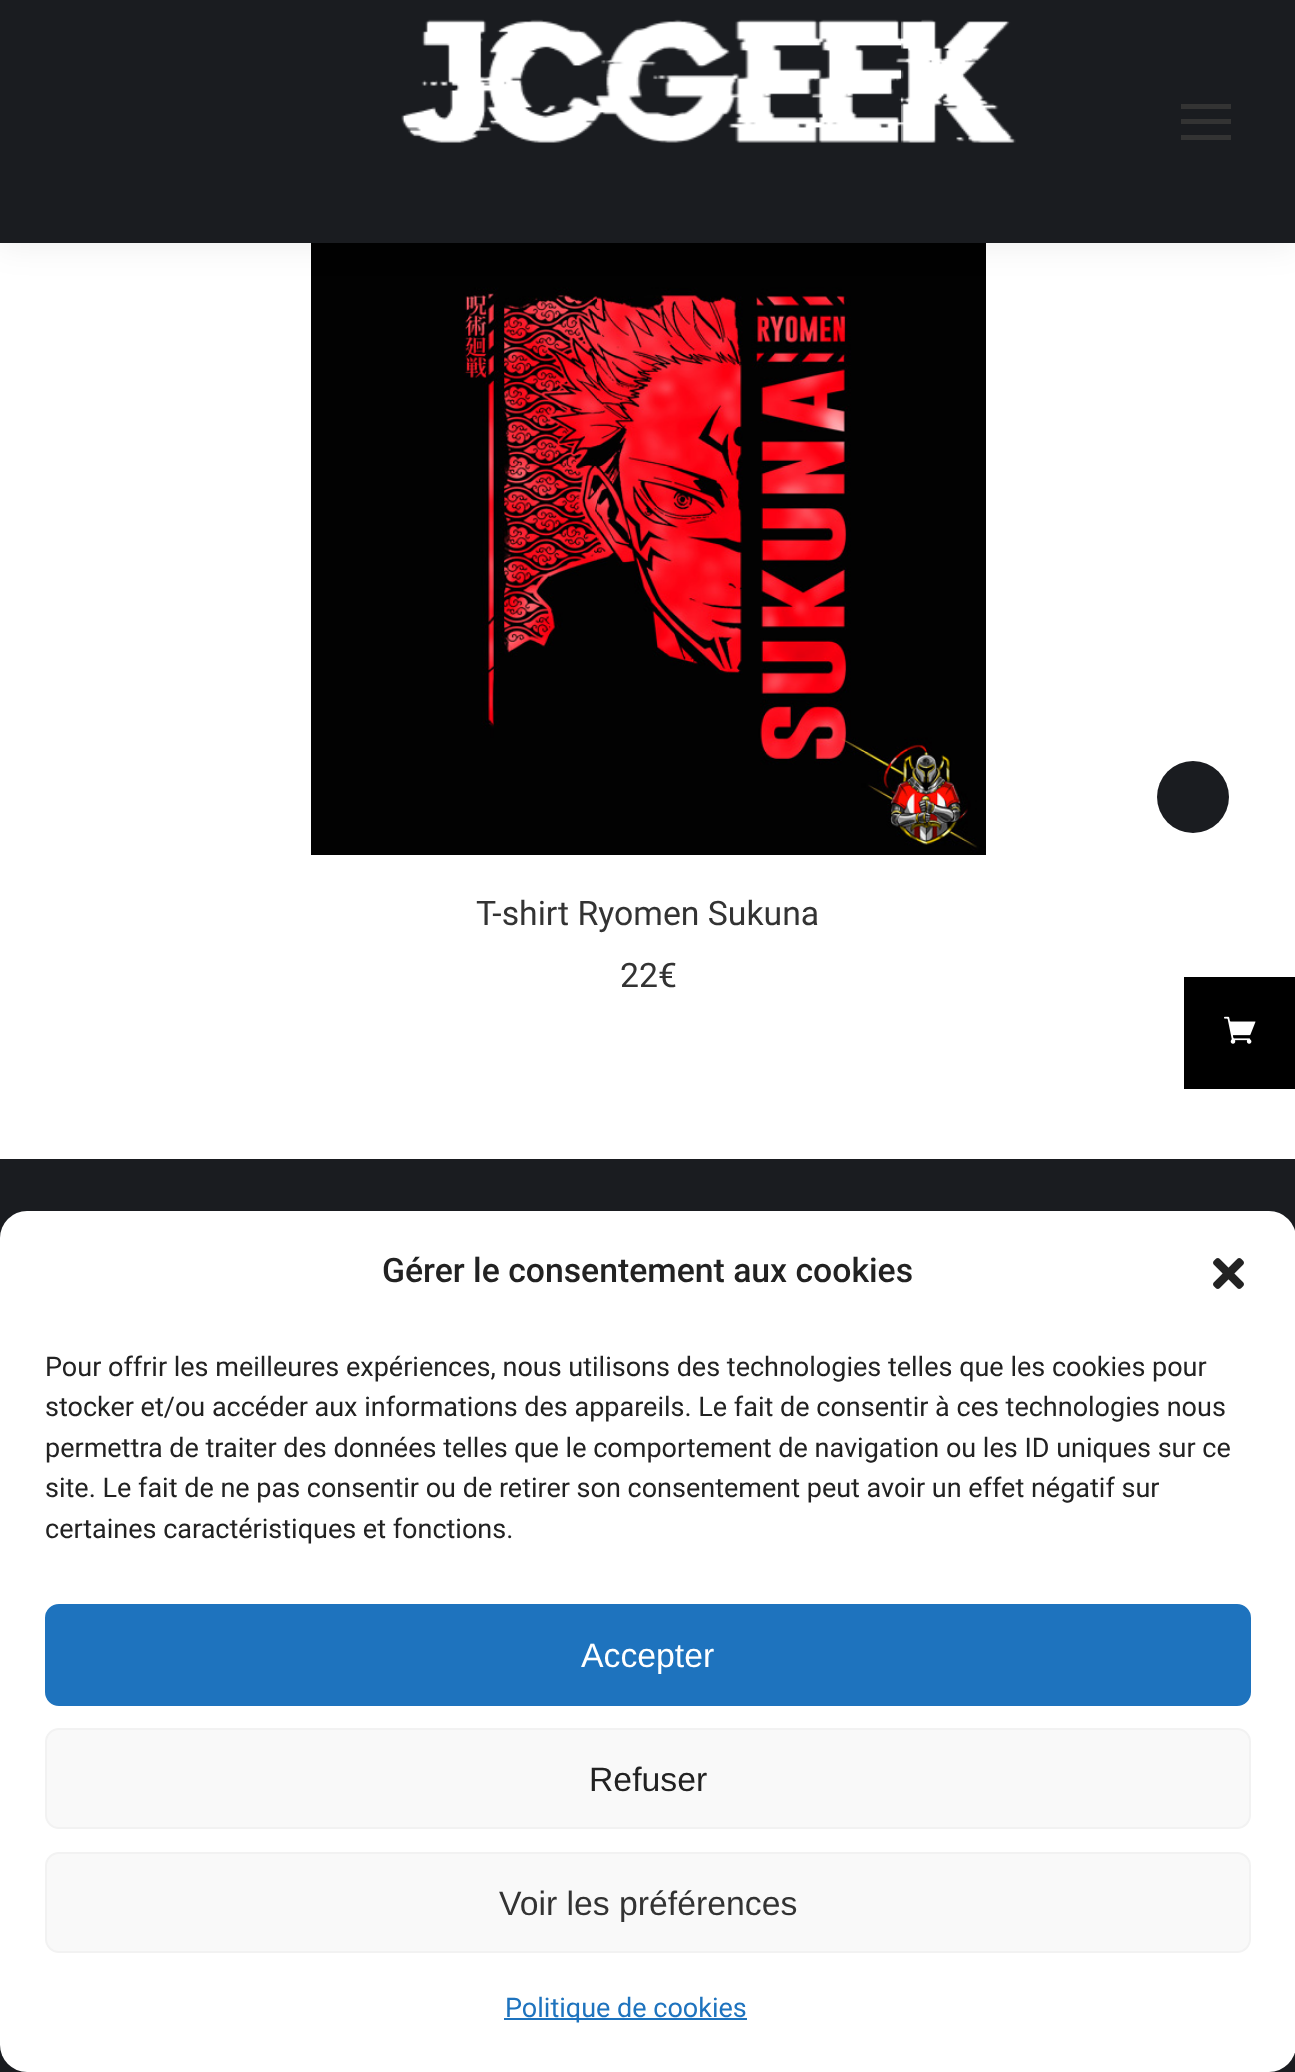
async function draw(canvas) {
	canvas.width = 1295;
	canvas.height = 2072;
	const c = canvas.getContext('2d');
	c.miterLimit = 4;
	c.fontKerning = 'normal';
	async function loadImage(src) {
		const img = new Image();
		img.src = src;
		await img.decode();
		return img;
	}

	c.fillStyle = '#fff';
	c.fillRect(0, 0, 1295, 2072);
	c.drawImage(await loadImage('img2.png'), 311, 243, 675, 612);
	c.fillStyle = '#00000012';
	c.filter = 'blur(17px)';
	c.beginPath();
	c.rect(-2, -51, 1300, 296);
	c.fill();
	c.filter = 'none';
	c.fillStyle = '#1a1c20';
	c.fillRect(0, 0, 1295, 243);
	c.drawImage(await loadImage('img1.png'), 401, 19, 615, 124);
	for (const [x, y, w, h, color] of [
		[1181, 104, 50, 5, '#333'],
		[1181, 119, 50, 5, '#333'],
		[1181, 135, 50, 5, '#333'],
	]) {
		c.fillStyle = color;
		c.fillRect(x, y, w, h);
	}
	c.fillStyle = '#1a1c20';
	c.beginPath();
	c.arc(1193, 797, 36, 0, 2 * Math.PI);
	c.fill();
	c.font = '33.75px Roboto';
	c.fillStyle = '#333';
	c.fillText('T-shirt Ryomen Sukuna', 476, 925);
	c.fillText('22€', 620, 987);
	c.fillStyle = '#1a1c20';
	c.fillRect(0, 1159, 1295, 913);
	c.fillStyle = '#000';
	c.fillRect(1184, 977, 111, 112);
	c.drawImage(await loadImage('img3.png'), 1224, 1016, 32, 28);
	c.fillStyle = '#fff';
	c.beginPath();
	c.roundRect(0, 1211, 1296, 861, 27);
	c.fill();
	c.font = '500 33.75px Roboto';
	c.fillStyle = '#222';
	c.fillText('Gérer le consentement aux cookies', 382, 1282);
	c.drawImage(await loadImage('img4.png'), 1213, 1258, 31, 31);
	c.font = '27px Roboto';
	for (const [text, x, y] of [
		['Pour offrir les meilleures expériences, nous utilisons des technologies telles que les cookies pour', 45, 1376],
		['stocker et/ou accéder aux informations des appareils. Le fait de consentir à ces technologies nous', 45, 1416],
		['permettra de traiter des données telles que le comportement de navigation ou les ID uniques sur ce', 45, 1457],
		['site. Le fait de ne pas consentir ou de retirer son consentement peut avoir un effet négatif sur', 45, 1497],
		['certaines caractéristiques et fonctions.', 45, 1538],
	]) {
		c.fillText(text, x, y);
	}
	c.fillStyle = '#1e73be';
	c.beginPath();
	c.roundRect(46, 1605, 1204, 100, 13);
	c.fill();
	c.strokeStyle = '#1e73be';
	c.lineWidth = 2;
	c.stroke();
	c.font = '33.75px Liberation Sans';
	c.fillStyle = '#fff';
	c.fillText('Accepter', 581, 1667);
	c.fillStyle = '#f9f9f9';
	c.beginPath();
	c.roundRect(46, 1729, 1204, 99, 13);
	c.fill();
	c.strokeStyle = '#f2f2f2';
	c.stroke();
	c.fillStyle = '#222';
	c.fillText('Refuser', 589, 1791);
	c.fillStyle = '#f9f9f9';
	c.beginPath();
	c.roundRect(46, 1853, 1204, 99, 13);
	c.fill();
	c.stroke();
	c.fillStyle = '#333';
	c.fillText('Voir les préférences', 499, 1915);
	c.fillStyle = '#1e73be';
	c.fillRect(504, 2018, 243, 2);
	c.font = '27px Roboto';
	c.fillText('Politique de cookies', 505, 2017);
}

draw(document.querySelector('canvas'));
